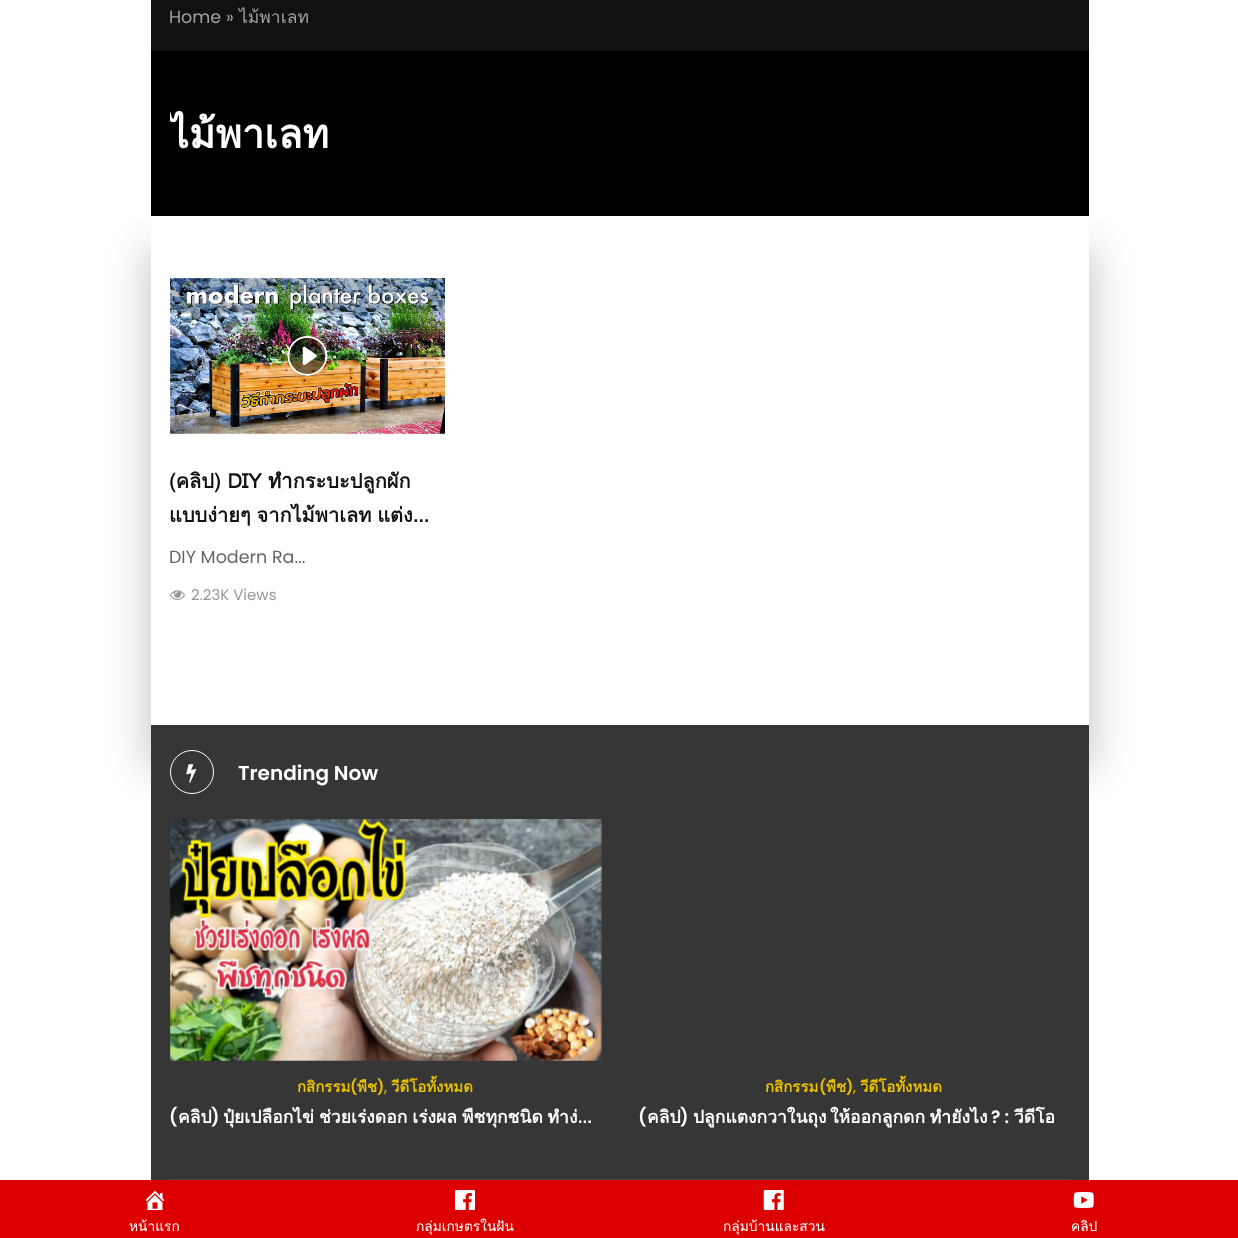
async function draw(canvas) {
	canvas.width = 1238;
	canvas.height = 1238;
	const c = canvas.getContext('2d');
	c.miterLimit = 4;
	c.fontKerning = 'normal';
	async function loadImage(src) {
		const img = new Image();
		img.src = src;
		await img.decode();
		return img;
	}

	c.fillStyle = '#fff';
	c.fillRect(0, 0, 1238, 1238);
	c.fillStyle = '#111';
	c.fillRect(151, 0, 938, 51);
	c.font = '17.5px Poppins';
	c.fillStyle = '#a0a0a0';
	c.fillText('Home »', 169, 23);
	c.font = '17.5px Loma';
	c.fillText('ไม้พาเลท', 239, 23);
	c.fillStyle = '#00000033';
	c.filter = 'blur(19px)';
	c.beginPath();
	c.rect(145, 248, 950, 521);
	c.fill();
	c.filter = 'none';
	c.fillStyle = '#000';
	c.fillRect(151, 51, 938, 165);
	c.save();
	c.beginPath();
	c.rect(170, 108, 900, 52);
	c.clip();
	c.font = 'bold 40px Loma';
	c.fillStyle = '#fff';
	c.fillText('ไม้พาเลท', 169, 148);
	c.restore();
	c.fillStyle = '#fff';
	c.fillRect(151, 217, 938, 508);
	c.drawImage(await loadImage('img1.png'), 170, 278, 275, 156);
	c.font = 'bold 20px Loma';
	c.fillStyle = '#131313';
	c.fillText('(คลิป) DIY ทำกระบะปลูกผัก', 169, 488);
	c.wordSpacing = '-1px';
	c.fillText('แบบง่ายๆ จากไม้พาเลท แต่ง…', 169, 522);
	c.wordSpacing = '0px';
	c.font = '17.5px Poppins';
	c.fillStyle = '#666';
	c.fillText('DIY Modern Ra...', 169, 563);
	c.drawImage(await loadImage('img2.png'), 170, 590, 15, 10);
	c.font = '15px Poppins';
	c.fillStyle = '#999';
	c.fillText('2.23K Views', 191, 600);
	c.fillStyle = '#363636';
	c.fillRect(151, 725, 938, 455);
	c.fillStyle = '#4a4a4a';
	c.fillRect(170, 1179, 900, 1);
	c.beginPath();
	c.arc(192, 772, 21.5, 0, 2 * Math.PI);
	c.strokeStyle = '#fff';
	c.stroke();
	c.drawImage(await loadImage('img3.png'), 186, 764, 11, 19);
	c.font = '600 20px Poppins';
	c.fillStyle = '#fff';
	c.fillText('Trending Now', 238, 780);
	c.drawImage(await loadImage('img4.png'), 170, 819, 432, 242);
	c.font = 'bold 15px Loma';
	c.fillStyle = '#ecc200';
	c.fillText('กสิกรรม', 297, 1092);
	c.font = '600 15px Poppins';
	c.fillText('(', 350, 1092);
	c.fillText(')', 377, 1092);
	c.font = '15px Poppins';
	c.fillText(',', 384, 1092);
	c.font = 'bold 15px Loma';
	c.fillText('วีดีโอทั้งหมด', 391, 1092);
	c.fillText('พืช', 357, 1092);
	c.font = '600 17.5px Poppins';
	c.fillStyle = '#fff';
	c.fillText('(', 169, 1123);
	c.font = 'bold 17.5px Loma';
	c.fillText('คลิป', 178, 1123);
	c.font = '600 17.5px Poppins';
	c.fillText(')', 211, 1123);
	c.wordSpacing = '-1px';
	c.font = 'bold 17.5px Loma';
	c.fillText('ปุ๋ยเปลือกไข่ ช่วยเร่งดอก เร่งผล พืชทุกชนิด ทำง่…', 223, 1123);
	c.wordSpacing = '0px';
	c.font = 'bold 15px Loma';
	c.fillStyle = '#ecc200';
	c.fillText('กสิกรรม', 765, 1092);
	c.font = '600 15px Poppins';
	c.fillText('(', 819, 1092);
	c.fillText(')', 846, 1092);
	c.font = '15px Poppins';
	c.fillText(',', 853, 1092);
	c.font = 'bold 15px Loma';
	c.fillText('วีดีโอทั้งหมด', 860, 1092);
	c.fillText('พืช', 826, 1092);
	c.font = '600 17.5px Poppins';
	c.fillStyle = '#fff';
	c.fillText('(', 638, 1123);
	c.font = 'bold 17.5px Loma';
	c.fillText('คลิป', 647, 1123);
	c.font = '600 17.5px Poppins';
	c.fillText(')', 680, 1123);
	c.font = 'bold 17.5px Loma';
	for (const [text, x, y] of [
		['ปลูกแตงกวาในถุง', 693, 1123],
		['ให้ออกลูกดก', 830, 1123],
		['ทำยังไง', 930, 1123],
	]) {
		c.fillText(text, x, y);
	}
	c.font = '600 17.5px Poppins';
	c.fillText('? :', 991, 1123);
	c.font = 'bold 17.5px Loma';
	c.fillText('วีดีโอ', 1014, 1123);
	c.fillStyle = '#d00';
	c.fillRect(0, 1180, 1238, 58);
	c.drawImage(await loadImage('img5.png'), 145, 1190, 20, 20);
	c.font = '13.75px Loma';
	c.fillStyle = '#fff';
	c.fillText('หน้าแรก', 129, 1231);
	c.drawImage(await loadImage('img6.png'), 455, 1190, 20, 20);
	c.fillText('กลุ่มเกษตรในฝัน', 416, 1231);
	c.drawImage(await loadImage('img7.png'), 763, 1190, 21, 20);
	c.fillText('กลุ่มบ้านและสวน', 723, 1231);
	c.drawImage(await loadImage('img8.png'), 1073, 1192, 21, 16);
	c.fillText('คลิป', 1071, 1231);
}

draw(document.querySelector('canvas'));
